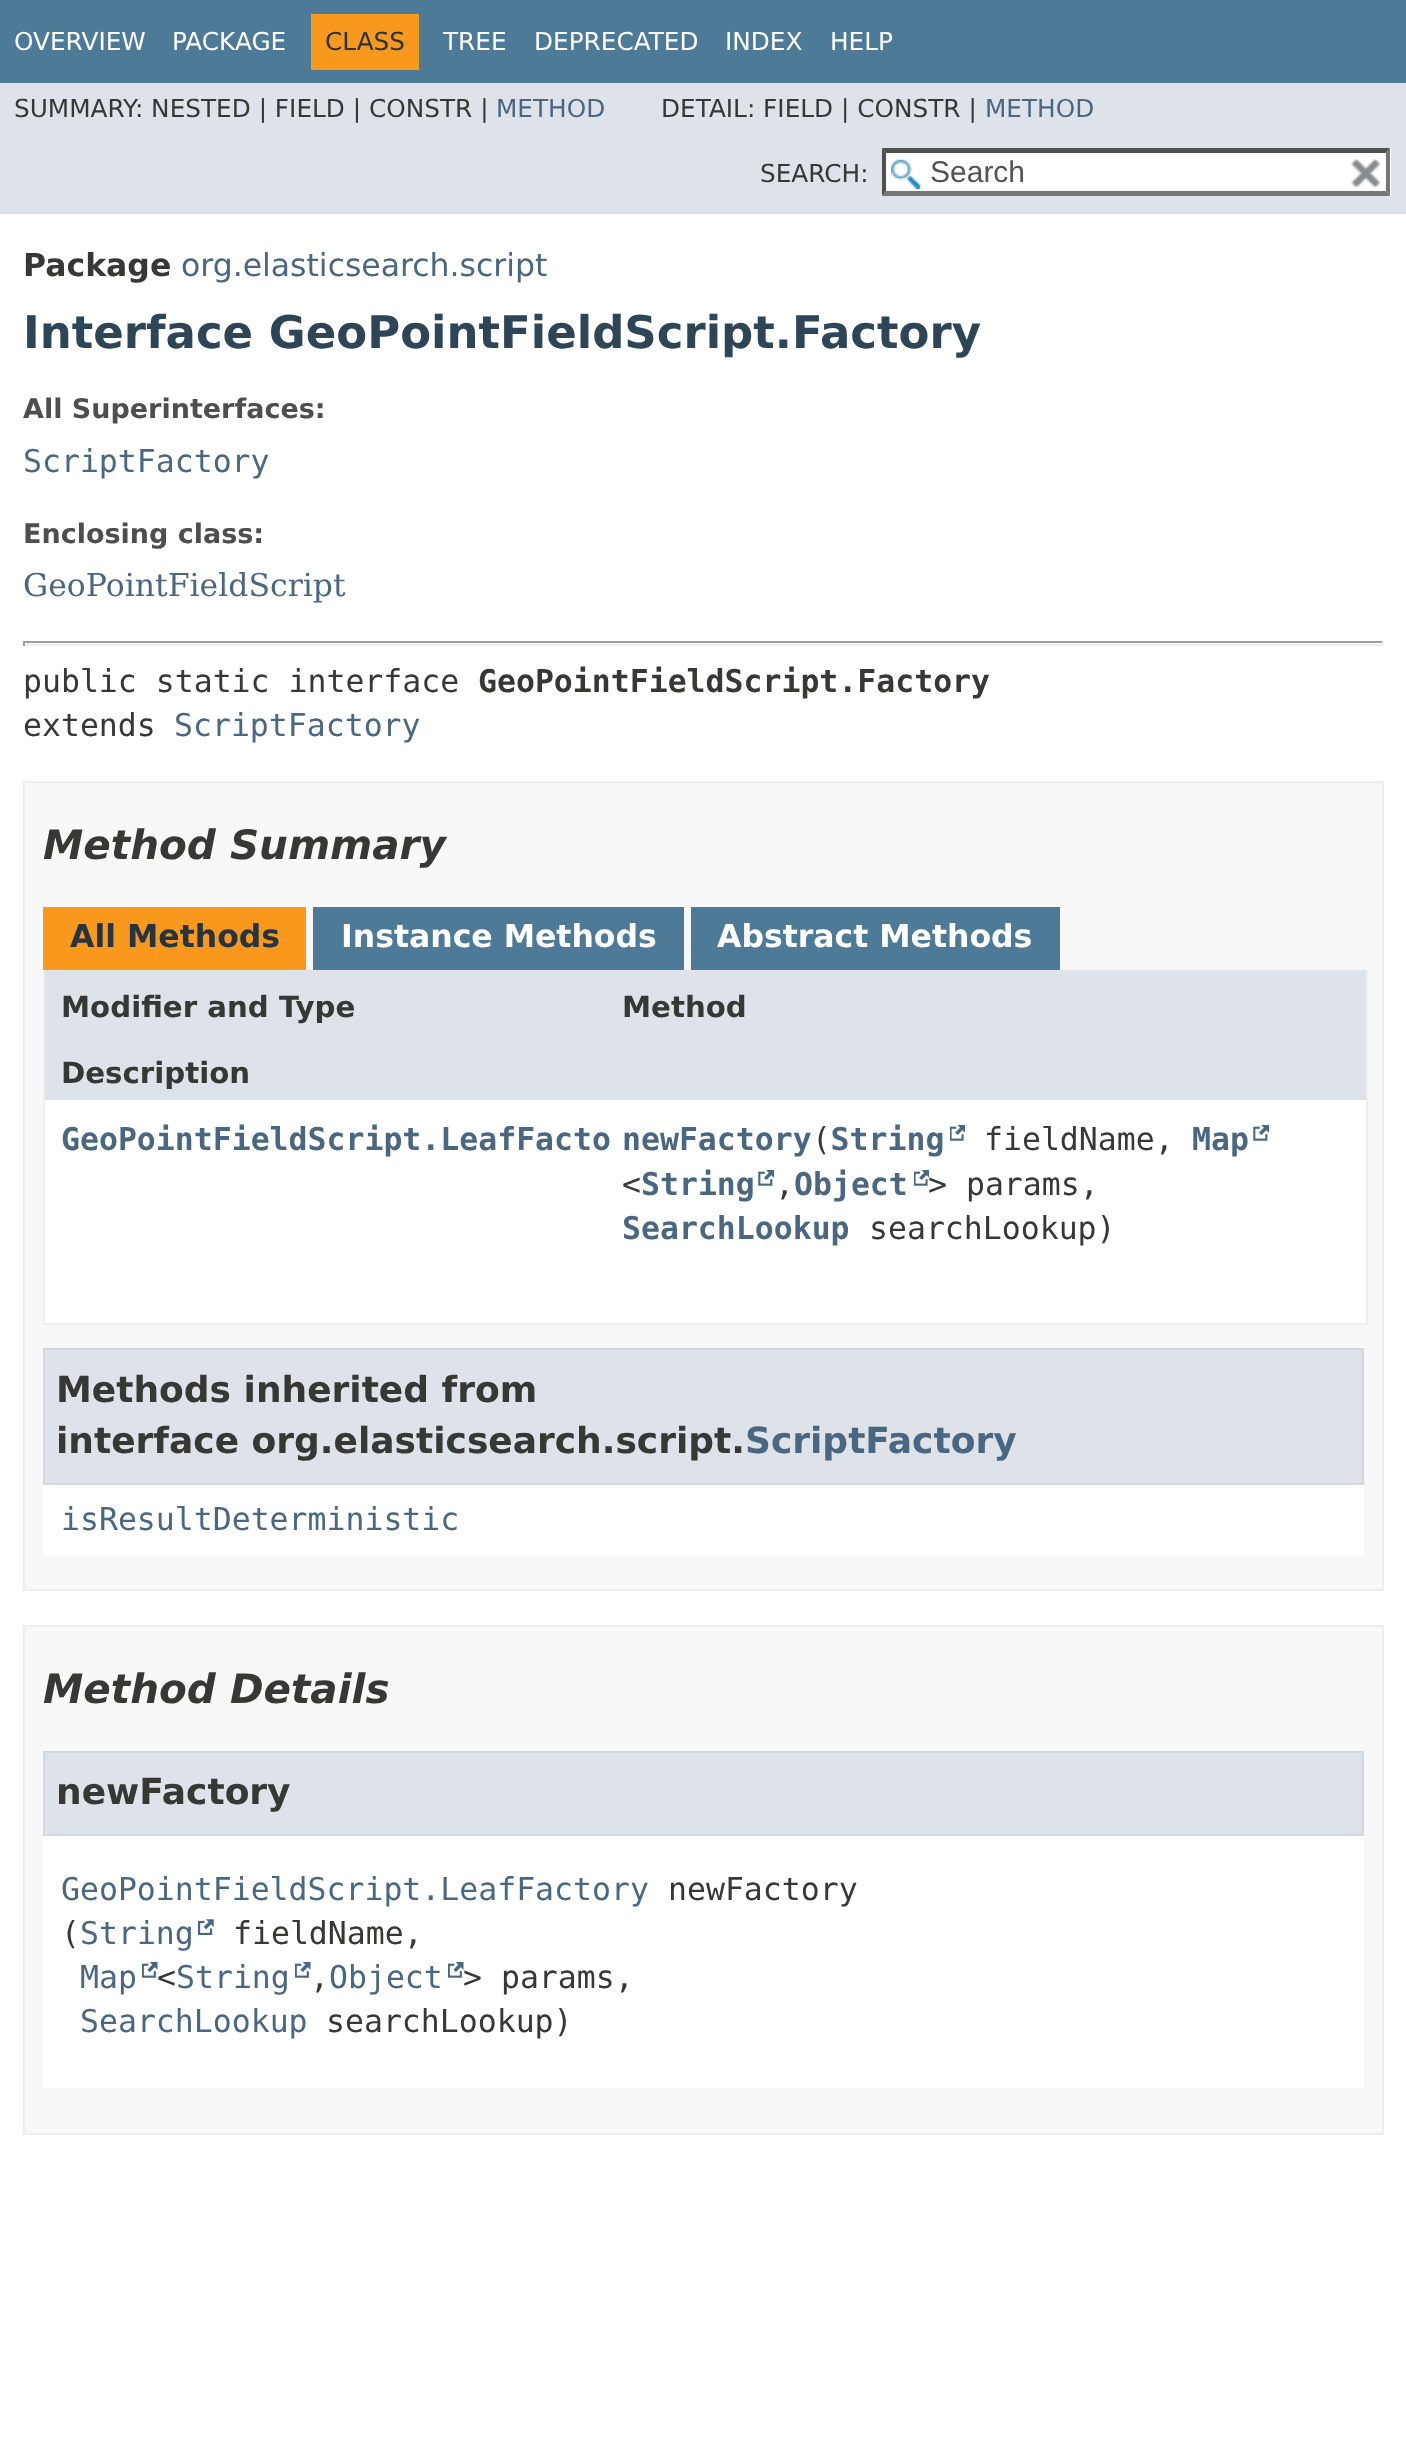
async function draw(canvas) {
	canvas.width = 1406;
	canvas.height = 2441;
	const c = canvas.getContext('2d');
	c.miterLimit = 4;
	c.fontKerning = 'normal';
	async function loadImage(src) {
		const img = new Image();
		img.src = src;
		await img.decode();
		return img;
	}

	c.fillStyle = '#fff';
	c.fillRect(0, 0, 1406, 2441);
	c.fillStyle = '#4d7a97';
	c.fillRect(0, 0, 1406, 83);
	c.font = '24.75px DejaVu Sans';
	c.fillStyle = '#fff';
	c.fillText('OVERVIEW', 14, 50);
	c.fillText('PACKAGE', 172, 50);
	c.fillStyle = '#f8981d';
	c.fillRect(311, 14, 108, 56);
	c.fillStyle = '#253441';
	c.fillText('CLASS', 325, 50);
	c.fillStyle = '#fff';
	for (const [text, x, y] of [
		['TREE', 443, 50],
		['DEPRECATED', 534, 50],
		['INDEX', 725, 50],
		['HELP', 830, 50],
	]) {
		c.fillText(text, x, y);
	}
	c.fillStyle = '#dee3e9';
	c.fillRect(0, 83, 1406, 131);
	c.fillStyle = '#353833';
	c.fillText('SUMMARY: NESTED | FIELD | CONSTR |', 14, 117);
	c.fillStyle = '#4a6782';
	c.fillText('METHOD', 496, 117);
	c.fillStyle = '#353833';
	c.fillText('DETAIL: FIELD | CONSTR |', 661, 117);
	c.fillStyle = '#4a6782';
	c.fillText('METHOD', 985, 117);
	c.fillStyle = '#353833';
	c.fillText('SEARCH:', 760, 182);
	c.fillStyle = '#fff';
	c.fillRect(882, 149, 509, 47);
	c.drawImage(await loadImage('img1.png'), 891, 159, 30, 30);
	c.fillStyle = '#4f4f4f';
	c.beginPath();
	c.moveTo(882, 148);
	c.lineTo(1390, 148);
	c.lineTo(1386, 153);
	c.lineTo(886, 153);
	c.closePath();
	c.fill();
	c.fillStyle = '#767676';
	c.beginPath();
	c.moveTo(1390, 148);
	c.lineTo(1390, 196);
	c.lineTo(1386, 191);
	c.lineTo(1386, 153);
	c.closePath();
	c.fill();
	c.beginPath();
	c.moveTo(1390, 196);
	c.lineTo(882, 196);
	c.lineTo(886, 191);
	c.lineTo(1386, 191);
	c.closePath();
	c.fill();
	c.fillStyle = '#4f4f4f';
	c.beginPath();
	c.moveTo(882, 196);
	c.lineTo(882, 148);
	c.lineTo(886, 153);
	c.lineTo(886, 191);
	c.closePath();
	c.fill();
	c.font = '30px Liberation Sans';
	c.fillStyle = '#545454';
	c.fillText('Search', 930, 182);
	c.drawImage(await loadImage('img2.png'), 1350, 159, 31, 29);
	c.font = 'bold 31.5px DejaVu Sans';
	c.fillStyle = '#353833';
	c.fillText('Package', 23, 276);
	c.font = '31.5px DejaVu Sans';
	c.fillStyle = '#4a6782';
	c.fillText('org.elasticsearch.script', 181, 276);
	c.font = 'bold 45px DejaVu Sans';
	c.fillStyle = '#2c4557';
	c.fillText('Interface GeoPointFieldScript.Factory', 23, 348);
	c.font = 'bold 27px DejaVu Sans';
	c.fillStyle = '#4e4e4e';
	c.fillText('All Superinterfaces:', 23, 418);
	c.font = '31.5px DejaVu Sans Mono';
	c.fillStyle = '#4a6782';
	c.fillText('ScriptFactory', 23, 472);
	c.font = 'bold 27px DejaVu Sans';
	c.fillStyle = '#4e4e4e';
	c.fillText('Enclosing class:', 23, 543);
	c.font = '31.5px DejaVu Serif';
	c.fillStyle = '#4a6782';
	c.fillText('GeoPointFieldScript', 23, 596);
	for (const [x, y, w, h, color] of [
		[23, 641, 1361, 2, '#9f9f9f'],
		[1382, 641, 2, 5, '#eee'],
		[23, 644, 1361, 2, '#eee'],
		[23, 641, 2, 5, '#9f9f9f'],
	]) {
		c.fillStyle = color;
		c.fillRect(x, y, w, h);
	}
	c.font = '31.5px DejaVu Sans Mono';
	c.fillStyle = '#353833';
	c.fillText('public static interface', 23, 692);
	c.font = 'bold 31.5px DejaVu Sans Mono';
	c.fillText('GeoPointFieldScript.Factory', 478, 692);
	c.font = '31.5px DejaVu Sans Mono';
	c.fillText('extends', 23, 736);
	c.fillStyle = '#4a6782';
	c.fillText('ScriptFactory', 174, 736);
	c.fillStyle = '#f8f8f8';
	c.beginPath();
	c.rect(24, 782, 1359, 808);
	c.fill();
	c.strokeStyle = '#ededed';
	c.lineWidth = 2;
	c.stroke();
	c.font = 'italic bold 40.5px DejaVu Sans';
	c.fillStyle = '#353833';
	c.fillText('Method Summary', 43, 859);
	c.fillStyle = '#f8981d';
	c.fillRect(43, 907, 263, 63);
	c.font = 'bold 31.5px DejaVu Sans';
	c.fillStyle = '#253441';
	c.fillText('All Methods', 70, 947);
	c.fillStyle = '#4d7a97';
	c.fillRect(313, 907, 371, 63);
	c.fillStyle = '#fff';
	c.fillText('Instance Methods', 341, 947);
	c.fillStyle = '#4d7a97';
	c.fillRect(691, 907, 369, 63);
	c.fillStyle = '#fff';
	c.fillText('Abstract Methods', 717, 947);
	for (const [x, y, w, h, color] of [
		[1366, 970, 2, 355, '#eee'],
		[43, 1323, 1325, 2, '#eee'],
		[43, 970, 2, 355, '#eee'],
		[45, 970, 1321, 65, '#dee3e9'],
	]) {
		c.fillStyle = color;
		c.fillRect(x, y, w, h);
	}
	c.font = 'bold 29.25px DejaVu Sans';
	c.fillStyle = '#353833';
	c.fillText('Modifier and Type', 61, 1017);
	c.fillText('Method', 622, 1017);
	c.fillStyle = '#dee3e9';
	c.fillRect(45, 1035, 1321, 65);
	c.fillStyle = '#353833';
	c.fillText('Description', 61, 1083);
	c.fillStyle = '#fff';
	c.fillRect(45, 1100, 1321, 158);
	c.font = 'bold 31.5px DejaVu Sans Mono';
	c.fillStyle = '#4a6782';
	c.fillText('GeoPointFieldScript.LeafFacto', 61, 1150);
	c.fillText('newFactory String', 622, 1150);
	c.drawImage(await loadImage('img3.png'), 950, 1125, 15, 16);
	c.font = '31.5px DejaVu Sans Mono';
	c.fillStyle = '#353833';
	c.fillText('fieldName,', 984, 1150);
	c.fillText('(', 812, 1150);
	c.font = 'bold 31.5px DejaVu Sans Mono';
	c.fillStyle = '#4a6782';
	c.fillText('Map', 1192, 1150);
	c.drawImage(await loadImage('img4.png'), 1253, 1125, 16, 16);
	c.font = '31.5px DejaVu Sans Mono';
	c.fillStyle = '#353833';
	c.fillText('<', 622, 1195);
	c.font = 'bold 31.5px DejaVu Sans Mono';
	c.fillStyle = '#4a6782';
	c.fillText('String', 641, 1195);
	c.drawImage(await loadImage('img4.png'), 758, 1170, 16, 16);
	c.font = '31.5px DejaVu Sans Mono';
	c.fillStyle = '#353833';
	c.fillText(',', 775, 1195);
	c.font = 'bold 31.5px DejaVu Sans Mono';
	c.fillStyle = '#4a6782';
	c.fillText('Object', 794, 1195);
	c.drawImage(await loadImage('img3.png'), 914, 1170, 15, 16);
	c.font = '31.5px DejaVu Sans Mono';
	c.fillStyle = '#353833';
	c.fillText('> params,', 928, 1195);
	c.font = 'bold 31.5px DejaVu Sans Mono';
	c.fillStyle = '#4a6782';
	c.fillText('SearchLookup', 622, 1239);
	c.font = '31.5px DejaVu Sans Mono';
	c.fillStyle = '#353833';
	c.fillText('searchLookup)', 869, 1239);
	c.fillStyle = '#fff';
	c.fillRect(45, 1258, 1321, 65);
	c.fillRect(43, 1485, 1321, 70);
	c.fillStyle = '#dee3e9';
	c.beginPath();
	c.rect(44, 1349, 1319, 135);
	c.fill();
	c.strokeStyle = '#d0d9e0';
	c.stroke();
	c.font = 'bold 36px DejaVu Sans';
	c.fillStyle = '#353833';
	c.fillText('Methods inherited from', 56, 1402);
	c.fillText('interface org.elasticsearch.script.', 56, 1453);
	c.fillStyle = '#4a6782';
	c.fillText('ScriptFactory', 745, 1453);
	c.font = '31.5px DejaVu Sans Mono';
	c.fillText('isResultDeterministic', 61, 1530);
	c.fillStyle = '#f8f8f8';
	c.beginPath();
	c.rect(24, 1626, 1359, 508);
	c.fill();
	c.strokeStyle = '#ededed';
	c.stroke();
	c.font = 'italic bold 40.5px DejaVu Sans';
	c.fillStyle = '#353833';
	c.fillText('Method Details', 43, 1703);
	c.fillStyle = '#fff';
	c.fillRect(43, 1836, 1321, 252);
	c.fillStyle = '#dee3e9';
	c.beginPath();
	c.rect(44, 1752, 1319, 83);
	c.fill();
	c.strokeStyle = '#d0d9e0';
	c.stroke();
	c.font = 'bold 36px DejaVu Sans';
	c.fillStyle = '#353833';
	c.fillText('newFactory', 56, 1804);
	c.font = '31.5px DejaVu Sans Mono';
	c.fillStyle = '#4a6782';
	c.fillText('GeoPointFieldScript.LeafFactory', 61, 1900);
	c.fillStyle = '#353833';
	c.fillText('newFactory', 668, 1900);
	c.fillText('(', 61, 1944);
	c.fillStyle = '#4a6782';
	c.fillText('String', 80, 1944);
	c.drawImage(await loadImage('img5.png'), 198, 1919, 16, 16);
	c.fillStyle = '#353833';
	c.fillText('fieldName,', 233, 1944);
	c.fillStyle = '#4a6782';
	c.fillText('Map', 80, 1988);
	c.drawImage(await loadImage('img6.png'), 142, 1962, 16, 16);
	c.fillStyle = '#353833';
	c.fillText('<', 157, 1988);
	c.fillStyle = '#4a6782';
	c.fillText('String', 176, 1988);
	c.drawImage(await loadImage('img6.png'), 295, 1962, 16, 16);
	c.fillStyle = '#353833';
	c.fillText(',', 310, 1988);
	c.fillStyle = '#4a6782';
	c.fillText('Object', 329, 1988);
	c.drawImage(await loadImage('img6.png'), 448, 1962, 16, 16);
	c.fillStyle = '#353833';
	c.fillText('> params,', 463, 1988);
	c.fillStyle = '#4a6782';
	c.fillText('SearchLookup', 80, 2032);
	c.fillStyle = '#353833';
	c.fillText('searchLookup)', 326, 2032);
}

draw(document.querySelector('canvas'));
